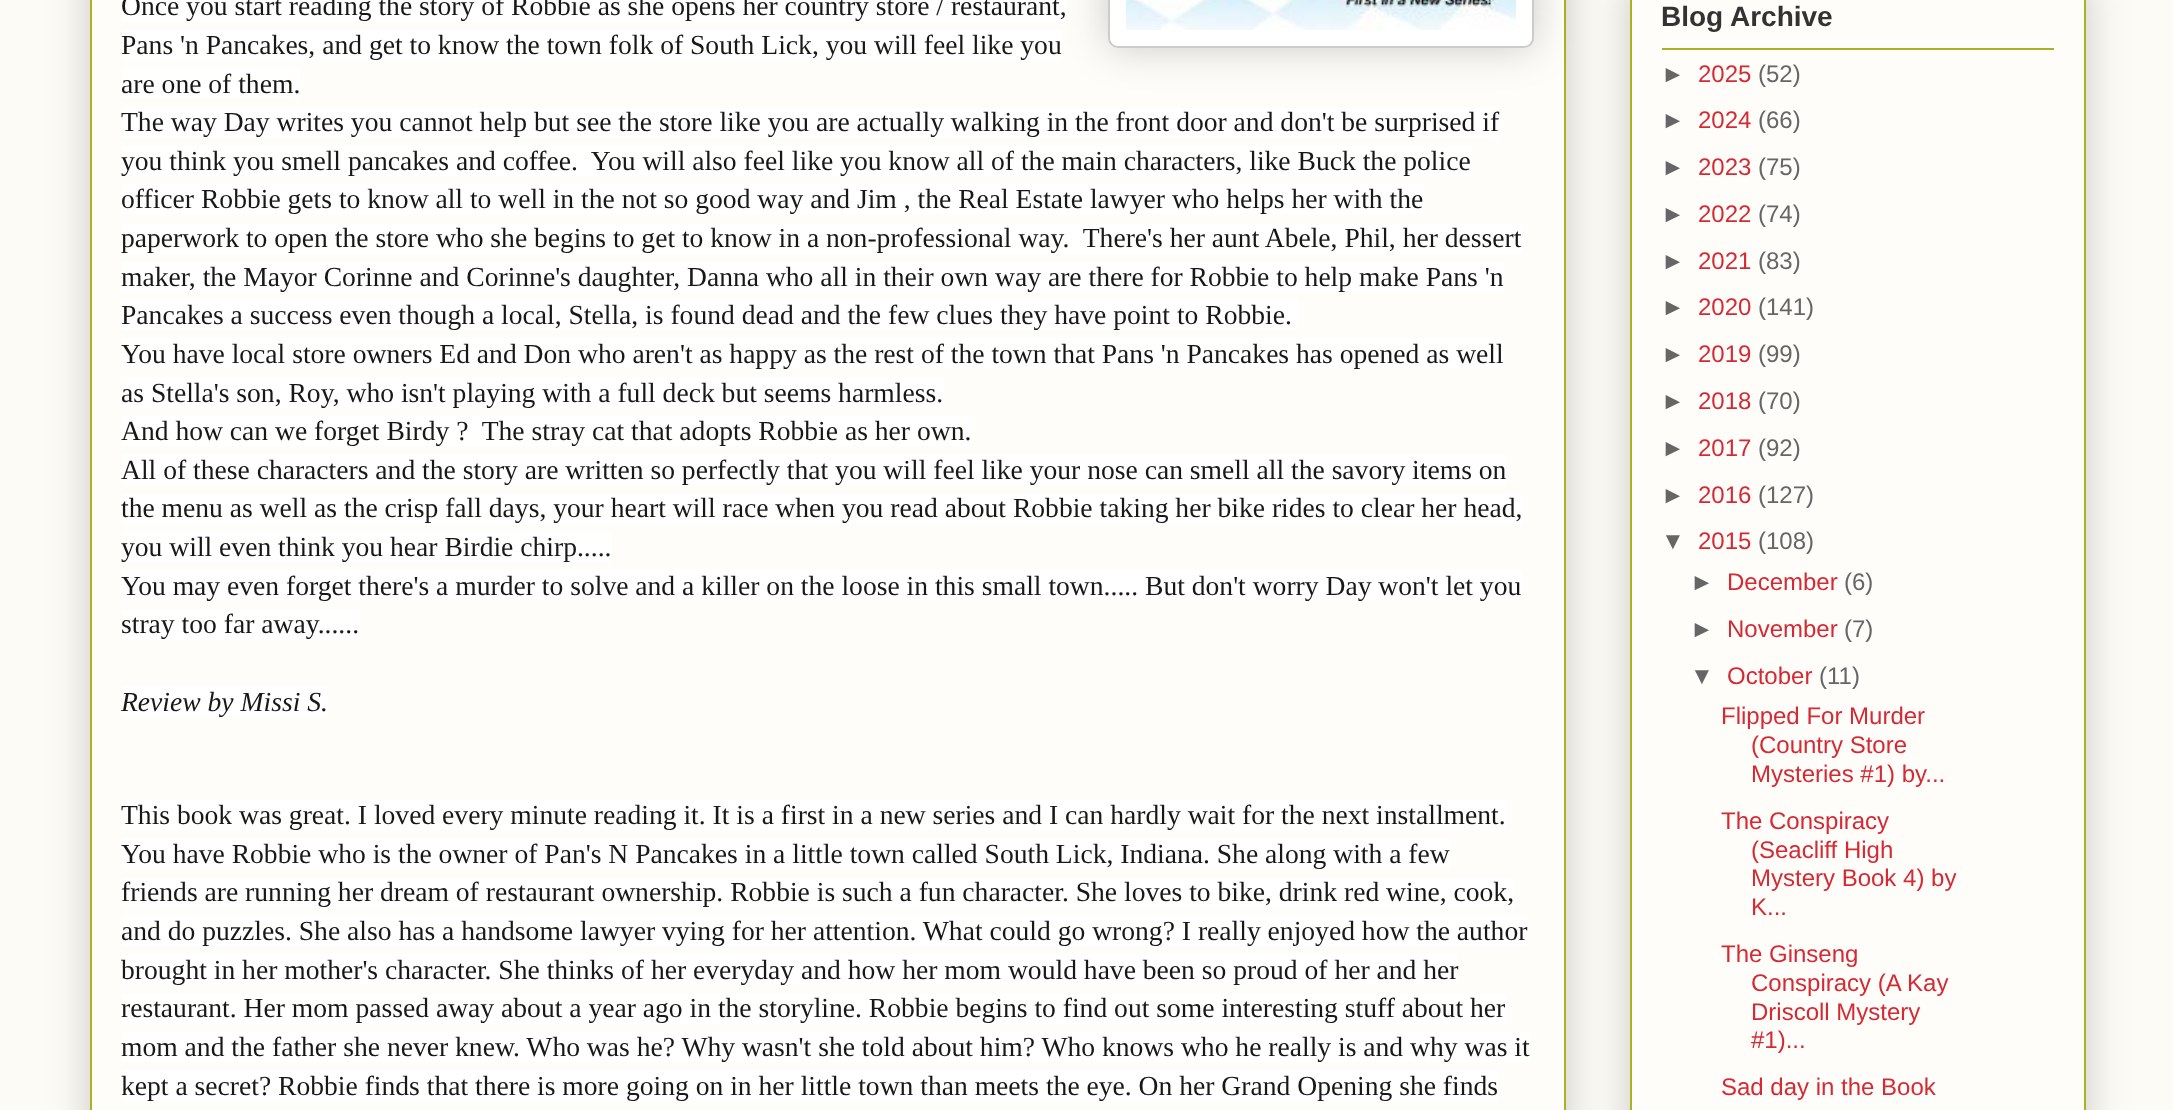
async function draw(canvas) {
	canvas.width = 2173;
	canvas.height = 1110;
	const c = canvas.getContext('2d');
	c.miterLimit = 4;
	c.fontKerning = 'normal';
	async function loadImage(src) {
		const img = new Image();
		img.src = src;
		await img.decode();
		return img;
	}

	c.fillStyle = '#fcfbf5';
	c.fillRect(0, 0, 2173, 1110);
	c.fillStyle = '#00000033';
	c.filter = 'blur(20px)';
	c.beginPath();
	c.roundRect(90, -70, 1476, 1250, 10);
	c.fill();
	c.filter = 'none';
	c.fillStyle = '#fefdfa';
	c.beginPath();
	c.rect(91, -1, 1474, 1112);
	c.fill();
	c.strokeStyle = '#aab123';
	c.lineWidth = 2;
	c.stroke();
	c.fillStyle = '#00000033';
	c.filter = 'blur(20px)';
	c.beginPath();
	c.roundRect(1108, -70, 426, 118, 10);
	c.fill();
	c.filter = 'none';
	c.fillStyle = '#fff';
	c.fillRect(122, 0, 944, 22);
	c.font = '27.6px Liberation Serif';
	c.fillStyle = '#181818';
	c.fillText('Once you start reading the story of Robbie as she opens her country store / restaurant,', 121, 15);
	c.fillStyle = '#fff';
	c.beginPath();
	c.roundRect(1109, -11, 424, 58, 9);
	c.fill();
	c.strokeStyle = '#ccc';
	c.stroke();
	c.drawImage(await loadImage('img1.png'), 1126, 0, 390, 30);
	c.fillRect(122, 30, 940, 30);
	c.fillStyle = '#181818';
	c.fillText('Pans \'n Pancakes, and get to know the town folk of South Lick, you will feel like you', 121, 54);
	c.fillStyle = '#fff';
	c.fillRect(122, 68, 178, 30);
	c.fillStyle = '#181818';
	c.fillText('are one of them.', 121, 93);
	c.fillStyle = '#fff';
	c.fillRect(122, 108, 1378, 30);
	c.fillStyle = '#181818';
	c.fillText('The way Day writes you cannot help but see the store like you are actually walking in the front door and don\'t be surprised if', 121, 131);
	c.fillStyle = '#fff';
	c.fillRect(122, 146, 1350, 30);
	c.fillStyle = '#181818';
	c.fillText('you think you smell pancakes and coffee.  You will also feel like you know all of the main characters, like Buck the police', 121, 170);
	c.fillStyle = '#fff';
	c.fillRect(122, 184, 1302, 30);
	c.fillStyle = '#181818';
	c.fillText('officer Robbie gets to know all to well in the not so good way and Jim , the Real Estate lawyer who helps her with the', 121, 208);
	c.fillStyle = '#fff';
	c.fillRect(122, 224, 1400, 30);
	c.fillStyle = '#181818';
	c.fillText('paperwork to open the store who she begins to get to know in a non-professional way.  There\'s her aunt Abele, Phil, her dessert', 121, 247);
	c.fillStyle = '#fff';
	c.fillRect(122, 262, 1382, 30);
	c.fillStyle = '#181818';
	c.fillText('maker, the Mayor Corinne and Corinne\'s daughter, Danna who all in their own way are there for Robbie to help make Pans \'n', 121, 286);
	c.fillStyle = '#fff';
	c.fillRect(122, 300, 1176, 30);
	c.fillStyle = '#181818';
	c.fillText('Pancakes a success even though a local, Stella, is found dead and the few clues they have point to Robbie.', 121, 324);
	c.fillStyle = '#fff';
	c.fillRect(122, 338, 1382, 30);
	c.fillStyle = '#181818';
	c.fillText('You have local store owners Ed and Don who aren\'t as happy as the rest of the town that Pans \'n Pancakes has opened as well', 121, 363);
	c.fillStyle = '#fff';
	c.fillRect(122, 378, 822, 30);
	c.fillStyle = '#181818';
	c.fillText('as Stella\'s son, Roy, who isn\'t playing with a full deck but seems harmless.', 121, 402);
	c.fillStyle = '#fff';
	c.fillRect(122, 416, 850, 30);
	c.fillStyle = '#181818';
	c.fillText('And how can we forget Birdy ?  The stray cat that adopts Robbie as her own.', 121, 440);
	c.fillStyle = '#fff';
	c.fillRect(122, 454, 1384, 30);
	c.fillStyle = '#181818';
	c.fillText('All of these characters and the story are written so perfectly that you will feel like your nose can smell all the savory items on', 121, 479);
	c.fillStyle = '#fff';
	c.fillRect(122, 494, 1400, 30);
	c.fillStyle = '#181818';
	c.fillText('the menu as well as the crisp fall days, your heart will race when you read about Robbie taking her bike rides to clear her head,', 121, 517);
	c.fillStyle = '#fff';
	c.fillRect(122, 532, 490, 30);
	c.fillStyle = '#181818';
	c.fillText('you will even think you hear Birdie chirp.....', 121, 556);
	c.fillStyle = '#fff';
	c.fillRect(122, 570, 1400, 30);
	c.fillStyle = '#181818';
	c.fillText('You may even forget there\'s a murder to solve and a killer on the loose in this small town..... But don\'t worry Day won\'t let you', 121, 595);
	c.fillStyle = '#fff';
	c.fillRect(122, 610, 238, 30);
	c.fillStyle = '#181818';
	c.fillText('stray too far away......', 121, 633);
	c.fillStyle = '#fff';
	c.fillRect(122, 686, 206, 30);
	c.font = 'italic 27.6px Liberation Serif';
	c.fillStyle = '#181818';
	c.fillText('Review by Missi S.', 121, 711);
	c.fillStyle = '#fff';
	c.fillRect(122, 800, 1384, 30);
	c.font = '27.6px Liberation Serif';
	c.fillStyle = '#181818';
	c.fillText('This book was great. I loved every minute reading it. It is a first in a new series and I can hardly wait for the next installment.', 121, 824);
	c.fillStyle = '#fff';
	c.fillRect(122, 838, 1328, 30);
	c.fillStyle = '#181818';
	c.fillText('You have Robbie who is the owner of Pan\'s N Pancakes in a little town called South Lick, Indiana. She along with a few', 121, 863);
	c.fillStyle = '#fff';
	c.fillRect(122, 878, 1392, 30);
	c.fillStyle = '#181818';
	c.fillText('friends are running her dream of restaurant ownership. Robbie is such a fun character. She loves to bike, drink red wine, cook,', 121, 901);
	c.fillStyle = '#fff';
	c.fillRect(122, 916, 1406, 30);
	c.fillStyle = '#181818';
	c.fillText('and do puzzles. She also has a handsome lawyer vying for her attention. What could go wrong? I really enjoyed how the author', 121, 940);
	c.fillStyle = '#fff';
	c.fillRect(122, 954, 1336, 30);
	c.fillStyle = '#181818';
	c.fillText('brought in her mother\'s character. She thinks of her everyday and how her mom would have been so proud of her and her', 121, 979);
	c.fillStyle = '#fff';
	c.fillRect(122, 994, 1384, 30);
	c.fillStyle = '#181818';
	c.fillText('restaurant. Her mom passed away about a year ago in the storyline. Robbie begins to find out some interesting stuff about her', 121, 1017);
	c.fillStyle = '#fff';
	c.fillRect(122, 1032, 1408, 30);
	c.fillStyle = '#181818';
	c.fillText('mom and the father she never knew. Who was he? Why wasn\'t she told about him? Who knows who he really is and why was it', 121, 1056);
	c.fillStyle = '#fff';
	c.fillRect(122, 1070, 1376, 30);
	c.fillStyle = '#181818';
	c.fillText('kept a secret? Robbie finds that there is more going on in her little town than meets the eye. On her Grand Opening she finds', 121, 1095);
	c.fillStyle = '#00000033';
	c.filter = 'blur(20px)';
	c.beginPath();
	c.roundRect(1630, -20, 456, 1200, 10);
	c.fill();
	c.filter = 'none';
	c.fillStyle = '#fefdfa';
	c.beginPath();
	c.rect(1631, -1, 454, 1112);
	c.fill();
	c.strokeStyle = '#aab123';
	c.stroke();
	c.font = 'bold 28px Liberation Sans';
	c.fillStyle = '#333';
	c.fillText('Blog Archive', 1661, 26);
	c.fillStyle = '#aab123';
	c.fillRect(1662, 48, 392, 2);
	c.font = '24px Liberation Sans';
	c.fillStyle = '#666';
	c.fillText('►', 1661, 82);
	c.fillStyle = '#d52a33';
	c.fillText('2025', 1698, 82);
	c.fillStyle = '#666';
	c.fillText('(52)', 1758, 82);
	c.fillText('►', 1661, 128);
	c.fillStyle = '#d52a33';
	c.fillText('2024', 1698, 128);
	c.fillStyle = '#666';
	c.fillText('(66)', 1758, 128);
	c.fillText('►', 1661, 175);
	c.fillStyle = '#d52a33';
	c.fillText('2023', 1698, 175);
	c.fillStyle = '#666';
	c.fillText('(75)', 1758, 175);
	c.fillText('►', 1661, 222);
	c.fillStyle = '#d52a33';
	c.fillText('2022', 1698, 222);
	c.fillStyle = '#666';
	c.fillText('(74)', 1758, 222);
	c.fillText('►', 1661, 269);
	c.fillStyle = '#d52a33';
	c.fillText('2021', 1698, 269);
	c.fillStyle = '#666';
	c.fillText('(83)', 1758, 269);
	c.fillText('►', 1661, 315);
	c.fillStyle = '#d52a33';
	c.fillText('2020', 1698, 315);
	c.fillStyle = '#666';
	c.fillText('(141)', 1758, 315);
	c.fillText('►', 1661, 362);
	c.fillStyle = '#d52a33';
	c.fillText('2019', 1698, 362);
	c.fillStyle = '#666';
	c.fillText('(99)', 1758, 362);
	c.fillText('►', 1661, 409);
	c.fillStyle = '#d52a33';
	c.fillText('2018', 1698, 409);
	c.fillStyle = '#666';
	c.fillText('(70)', 1758, 409);
	c.fillText('►', 1661, 456);
	c.fillStyle = '#d52a33';
	c.fillText('2017', 1698, 456);
	c.fillStyle = '#666';
	c.fillText('(92)', 1758, 456);
	c.fillText('►', 1661, 503);
	c.fillStyle = '#d52a33';
	c.fillText('2016', 1698, 503);
	c.fillStyle = '#666';
	c.fillText('(127)', 1758, 503);
	c.fillText('▼', 1661, 549);
	c.fillStyle = '#d52a33';
	c.fillText('2015', 1698, 549);
	c.fillStyle = '#666';
	c.fillText('(108)', 1758, 549);
	c.fillText('►', 1690, 590);
	c.fillStyle = '#d52a33';
	c.fillText('December', 1727, 590);
	c.fillStyle = '#666';
	c.fillText('(6)', 1844, 590);
	c.fillText('►', 1690, 637);
	c.fillStyle = '#d52a33';
	c.fillText('November', 1727, 637);
	c.fillStyle = '#666';
	c.fillText('(7)', 1844, 637);
	c.fillText('▼', 1690, 684);
	c.fillStyle = '#d52a33';
	c.fillText('October', 1727, 684);
	c.fillStyle = '#666';
	c.fillText('(11)', 1819, 684);
	c.fillStyle = '#d52a33';
	for (const [text, x, y] of [
		['Flipped For Murder', 1721, 724],
		['(Country Store', 1751, 753],
		['Mysteries #1) by...', 1751, 782],
		['The Conspiracy', 1721, 829],
		['(Seacliff High', 1751, 858],
		['Mystery Book 4) by', 1751, 886],
		['K...', 1751, 915],
		['The Ginseng', 1721, 962],
		['Conspiracy (A Kay', 1751, 991],
		['Driscoll Mystery', 1751, 1020],
		['#1)...', 1751, 1048],
		['Sad day in the Book', 1721, 1095],
	]) {
		c.fillText(text, x, y);
	}
}

draw(document.querySelector('canvas'));
